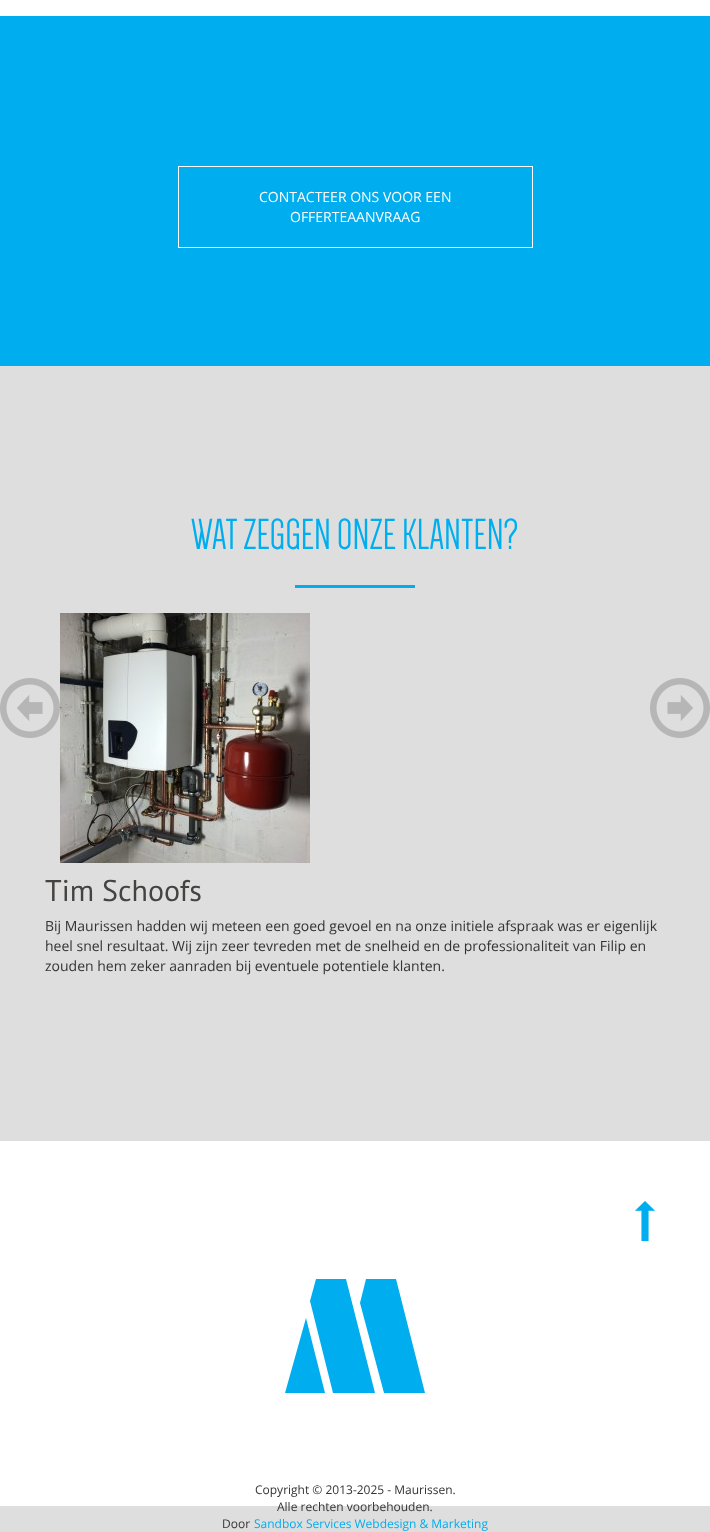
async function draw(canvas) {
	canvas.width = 710;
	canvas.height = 1532;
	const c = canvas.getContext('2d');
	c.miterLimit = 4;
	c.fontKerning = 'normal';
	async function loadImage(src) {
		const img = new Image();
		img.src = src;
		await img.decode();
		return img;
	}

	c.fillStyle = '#dedede';
	c.fillRect(0, 0, 710, 1532);
	c.fillStyle = '#fff';
	c.fillRect(0, 0, 710, 16);
	c.fillStyle = '#00aeef';
	c.fillRect(0, 16, 710, 350);
	c.strokeStyle = '#fff';
	c.strokeRect(178.5, 166.5, 354, 81);
	c.font = '14px Open Sans';
	c.fillStyle = '#fff';
	c.fillText('CONTACTEER ONS VOOR EEN', 259, 202);
	c.fillText('OFFERTEAANVRAAG', 290, 222);
	c.font = '45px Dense';
	c.fillStyle = '#00aeef';
	c.fillText('WAT ZEGGEN ONZE KLANTEN?', 191, 549);
	c.fillRect(295, 585, 120, 3);
	c.drawImage(await loadImage('img1.png'), 0, 678, 60, 60);
	c.drawImage(await loadImage('img2.png'), 650, 678, 60, 60);
	c.drawImage(await loadImage('img3.png'), 60, 613, 250, 250);
	c.font = '30px PT Sans';
	c.fillStyle = '#444341';
	c.fillText('Tim Schoofs', 45, 901);
	c.font = '14px Open Sans';
	c.fillStyle = '#333';
	for (const [text, x, y] of [
		['Bij Maurissen hadden wij meteen een goed gevoel en na onze initiele afspraak was er eigenlijk', 45, 931],
		['heel snel resultaat. Wij zijn zeer tevreden met de snelheid en de professionaliteit van Filip en', 45, 951],
		['zouden hem zeker aanraden bij eventuele potentiele klanten.', 45, 971],
	]) {
		c.fillText(text, x, y);
	}
	c.fillStyle = '#fff';
	c.fillRect(0, 1141, 710, 365);
	c.drawImage(await loadImage('img4.png'), 635, 1201, 20, 40);
	c.fillStyle = '#00aeef';
	c.beginPath();
	c.moveTo(285, 1393);
	c.lineTo(306, 1318);
	c.lineTo(325, 1393);
	c.closePath();
	c.moveTo(310, 1301);
	c.lineTo(316, 1279);
	c.lineTo(346, 1279);
	c.lineTo(375, 1393);
	c.lineTo(333, 1393);
	c.closePath();
	c.moveTo(360, 1303);
	c.lineTo(366, 1279);
	c.lineTo(396, 1279);
	c.lineTo(425, 1393);
	c.lineTo(384, 1393);
	c.closePath();
	c.fill();
	c.font = '12px Open Sans';
	c.fillStyle = '#333';
	for (const [text, x, y] of [
		['Copyright © 2013-2025 - Maurissen.', 255, 1494],
		['Alle rechten voorbehouden.', 277, 1511],
		['Door', 222, 1528],
	]) {
		c.fillText(text, x, y);
	}
	c.fillStyle = '#00aeef';
	c.fillText('Sandbox Services Webdesign & Marketing', 254, 1528);
}

draw(document.querySelector('canvas'));
